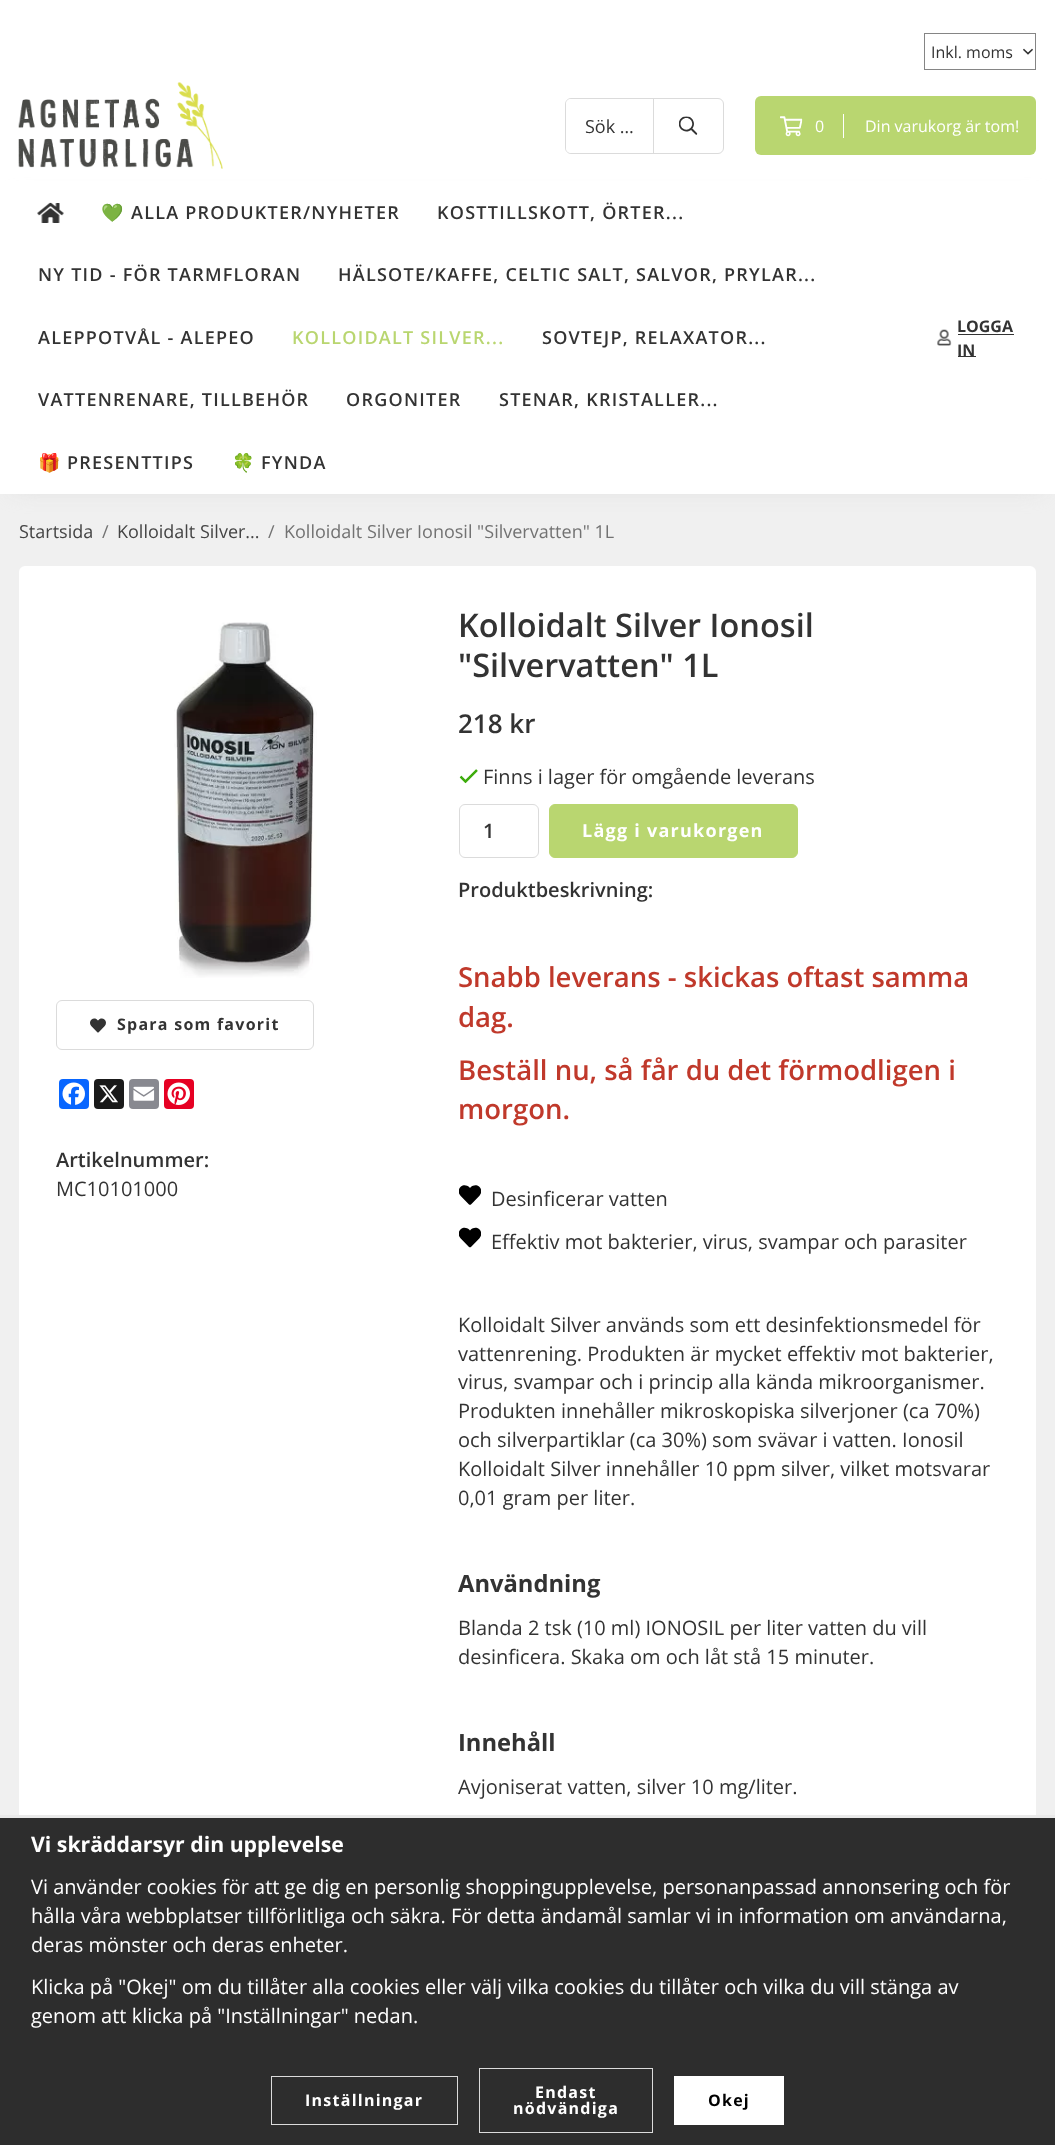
async function draw(canvas) {
	canvas.width = 1055;
	canvas.height = 2145;
	const c = canvas.getContext('2d');
	c.miterLimit = 4;
	c.fontKerning = 'normal';
	async function loadImage(src) {
		const img = new Image();
		img.src = src;
		await img.decode();
		return img;
	}

	c.fillStyle = '#f0f0f0';
	c.fillRect(0, 0, 1055, 2145);
	c.fillStyle = '#fff';
	c.fillRect(0, 0, 1055, 181);
	c.strokeStyle = '#858585';
	c.strokeRect(924.5, 33.5, 111, 36);
	c.font = '16px Open Sans';
	c.fillStyle = '#333';
	c.fillText('Inkl. moms', 931, 58);
	c.drawImage(await loadImage('img1.png'), 1023, 48, 10, 7);
	c.drawImage(await loadImage('img2.png'), 18, 82, 205, 87);
	c.beginPath();
	c.roundRect(565.5, 98.5, 158, 55, 5.5);
	c.strokeStyle = '#dbdbdb';
	c.stroke();
	c.fillStyle = '#fff';
	c.beginPath();
	c.roundRect(566, 99, 87, 54, [5, 0, 0, 5]);
	c.fill();
	c.font = '18px Open Sans';
	c.fillStyle = '#333';
	c.fillText('Sök …', 585, 133);
	c.fillStyle = '#dbdbdb';
	c.fillRect(653, 99, 1, 54);
	c.drawImage(await loadImage('img3.png'), 679, 116, 19, 19);
	c.fillStyle = '#b9d670';
	c.beginPath();
	c.roundRect(755, 96, 281, 59, 6);
	c.fill();
	c.fillStyle = '#fff';
	c.fillRect(843, 114, 1, 24);
	c.drawImage(await loadImage('img4.png'), 780, 116, 23, 21);
	c.font = '16px Open Sans';
	c.fillText('0', 815, 132);
	c.fillText('Din varukorg är tom!', 865, 132);
	c.fillStyle = '#dbdbdb';
	c.filter = 'blur(10.5px)';
	c.beginPath();
	c.rect(14, 203, 1027, 285);
	c.fill();
	c.filter = 'none';
	c.fillStyle = '#fff';
	c.fillRect(0, 181, 1055, 313);
	c.drawImage(await loadImage('img5.png'), 37, 202, 27, 21);
	c.letterSpacing = '1.25px';
	c.font = 'bold 18px Noto Color Emoji';
	c.fillStyle = '#333';
	c.fillText('💚', 101, 219);
	c.font = '600 18px Open Sans';
	for (const [text, x, y] of [
		['ALLA PRODUKTER/NYHETER', 131, 219],
		['KOSTTILLSKOTT, ÖRTER...', 437, 219],
		['NY TID - FÖR TARMFLORAN', 38, 281],
		['HÄLSOTE/KAFFE, CELTIC SALT, SALVOR, PRYLAR...', 338, 281],
		['ALEPPOTVÅL - ALEPEO', 38, 344],
	]) {
		c.fillText(text, x, y);
	}
	c.fillStyle = '#b9d670';
	c.fillText('KOLLOIDALT SILVER...', 292, 344);
	c.fillStyle = '#333';
	for (const [text, x, y] of [
		['SOVTEJP, RELAXATOR...', 542, 344],
		['VATTENRENARE, TILLBEHÖR', 38, 406],
		['ORGONITER', 346, 406],
		['STENAR, KRISTALLER...', 499, 406],
	]) {
		c.fillText(text, x, y);
	}
	c.font = 'bold 18px Noto Color Emoji';
	c.fillText('🎁', 38, 469);
	c.font = '600 18px Open Sans';
	c.fillText('PRESENTTIPS', 67, 469);
	c.font = 'bold 18px Noto Color Emoji';
	c.fillText('🍀', 232, 469);
	c.font = '600 18px Open Sans';
	c.fillText('FYNDA', 261, 469);
	c.drawImage(await loadImage('img6.png'), 937, 329, 15, 17);
	c.letterSpacing = '0px';
	c.font = 'bold 16px Open Sans';
	c.fillText('LOGGA', 957, 332);
	c.fillRect(958, 334, 56, 1);
	c.fillText('IN', 957, 356);
	c.fillRect(958, 356, 18, 1);
	c.font = '18px Open Sans';
	c.fillStyle = '#444';
	c.fillText('Startsida', 19, 538);
	c.fillStyle = '#727272';
	c.fillText('/', 102, 538);
	c.fillStyle = '#444';
	c.fillText('Kolloidalt Silver...', 117, 538);
	c.fillStyle = '#727272';
	c.fillText('/', 268, 538);
	c.fillText('Kolloidalt Silver Ionosil "Silvervatten" 1L', 284, 538);
	c.fillStyle = '#fff';
	c.beginPath();
	c.roundRect(19, 566, 1017, 1344, 6);
	c.fill();
	c.drawImage(await loadImage('img7.png'), 174, 622, 143, 356);
	c.font = '600 32.5px Open Sans';
	c.fillStyle = '#333';
	c.fillText('Kolloidalt Silver Ionosil', 458, 637);
	c.fillText('"Silvervatten" 1L', 458, 677);
	c.font = '600 26px Open Sans';
	c.fillText('218 kr', 458, 733);
	c.drawImage(await loadImage('img8.png'), 459, 769, 19, 15);
	c.font = '20px Open Sans';
	c.fillText('Finns i lager för omgående leverans', 483, 784);
	c.beginPath();
	c.roundRect(459.5, 804.5, 79, 53, 5.5);
	c.stroke();
	c.font = '600 20px Open Sans';
	c.fillText('1', 483, 838);
	c.fillStyle = '#b9d670';
	c.beginPath();
	c.roundRect(549.5, 804.5, 248, 53, 5.5);
	c.fill();
	c.strokeStyle = '#b9d670';
	c.stroke();
	c.letterSpacing = '1.25px';
	c.font = 'bold 18px Open Sans';
	c.fillStyle = '#fff';
	c.fillText('Lägg i varukorgen', 582, 837);
	c.letterSpacing = '0px';
	c.font = '600 20px Open Sans';
	c.fillStyle = '#333';
	c.fillText('Produktbeskrivning:', 458, 897);
	c.font = '600 27.5px Open Sans';
	c.fillStyle = '#c0392b';
	for (const [text, x, y] of [
		['Snabb leverans - skickas oftast samma', 458, 987],
		['dag.', 458, 1027],
		['Beställ nu, så får du det förmodligen i', 458, 1080],
		['morgon.', 458, 1119],
	]) {
		c.fillText(text, x, y);
	}
	c.drawImage(await loadImage('img9.png'), 459, 1185, 22, 20);
	c.font = '20px Open Sans';
	c.fillStyle = '#333';
	c.fillText('Desinficerar vatten', 491, 1206);
	c.drawImage(await loadImage('img10.png'), 459, 1227, 22, 21);
	for (const [text, x, y] of [
		['Effektiv mot bakterier, virus, svampar och parasiter', 491, 1249],
		['Kolloidalt Silver används som ett desinfektionsmedel för', 458, 1332],
		['vattenrening. Produkten är mycket effektiv mot bakterier,', 458, 1361],
		['virus, svampar och i princip alla kända mikroorganismer.', 458, 1389],
		['Produkten innehåller mikroskopiska silverjoner (ca 70%)', 458, 1418],
		['och silverpartiklar (ca 30%) som svävar i vatten. Ionosil', 458, 1447],
		['Kolloidalt Silver innehåller 10 ppm silver, vilket motsvarar', 458, 1476],
		['0,01 gram per liter.', 458, 1505],
	]) {
		c.fillText(text, x, y);
	}
	c.font = 'bold 23.75px Open Sans';
	c.fillText('Användning', 458, 1592);
	c.font = '20px Open Sans';
	c.fillText('Blanda 2 tsk (10 ml) IONOSIL per liter vatten du vill', 458, 1635);
	c.fillText('desinficera. Skaka om och låt stå 15 minuter.', 458, 1664);
	c.font = 'bold 23.75px Open Sans';
	c.fillText('Innehåll', 458, 1751);
	c.font = '20px Open Sans';
	c.fillText('Avjoniserat vatten, silver 10 mg/liter.', 458, 1794);
	c.beginPath();
	c.roundRect(56.5, 1000.5, 257, 49, 5.5);
	c.strokeStyle = '#dbdbdb';
	c.stroke();
	c.drawImage(await loadImage('img11.png'), 90, 1018, 16, 15);
	c.letterSpacing = '1.25px';
	c.font = 'bold 16px Open Sans';
	c.fillText('Spara som favorit', 117, 1030);
	c.fillStyle = '#0866ff';
	c.beginPath();
	c.roundRect(59, 1079, 30, 30, 4);
	c.fill();
	c.drawImage(await loadImage('img12.png'), 62, 1082, 23, 23);
	c.fillStyle = '#1a1a1a';
	c.beginPath();
	c.roundRect(94, 1079, 30, 30, 4);
	c.fill();
	c.drawImage(await loadImage('img13.png'), 99, 1085, 19, 18);
	c.fillStyle = '#888990';
	c.beginPath();
	c.roundRect(129, 1079, 30, 30, 4);
	c.fill();
	c.drawImage(await loadImage('img14.png'), 133, 1086, 22, 15);
	c.fillStyle = '#e60023';
	c.beginPath();
	c.roundRect(164, 1079, 30, 30, 4);
	c.fill();
	c.drawImage(await loadImage('img15.png'), 167, 1082, 23, 23);
	c.letterSpacing = '0px';
	c.font = '600 20px Open Sans';
	c.fillStyle = '#333';
	c.fillText('Artikelnummer:', 56, 1167);
	c.font = '20px Open Sans';
	c.fillText('MC10101000', 56, 1196);
	c.fillStyle = '#2d2d2d';
	c.fillRect(0, 1818, 1055, 327);
	c.fillStyle = '#e9e9e9';
	c.fillRect(0, 1815, 1055, 3);
	c.font = 'bold 21.25px Open Sans';
	c.fillStyle = '#fff';
	c.fillText('Vi skräddarsyr din upplevelse', 31, 1852);
	c.font = '20px Open Sans';
	for (const [text, x, y] of [
		['Vi använder cookies för att ge dig en personlig shoppingupplevelse, personanpassad annonsering och för', 31, 1894],
		['hålla våra webbplatser tillförlitliga och säkra. För detta ändamål samlar vi in information om användarna,', 31, 1923],
		['deras mönster och deras enheter.', 31, 1952],
		['Klicka på "Okej" om du tillåter alla cookies eller välj vilka cookies du tillåter och vilka du vill stänga av', 31, 1994],
		['genom att klicka på "Inställningar" nedan.', 31, 2023],
	]) {
		c.fillText(text, x, y);
	}
	c.strokeRect(271.5, 2076.5, 186, 48);
	c.letterSpacing = '1.25px';
	c.font = 'bold 16px Open Sans';
	c.fillText('Inställningar', 305, 2106);
	c.strokeRect(479.5, 2068.5, 173, 64);
	c.fillText('Endast', 535, 2098);
	c.fillText('nödvändiga', 513, 2114);
	c.fillRect(674, 2076, 110, 49);
	c.fillStyle = '#000';
	c.fillText('Okej', 708, 2106);
}

draw(document.querySelector('canvas'));
